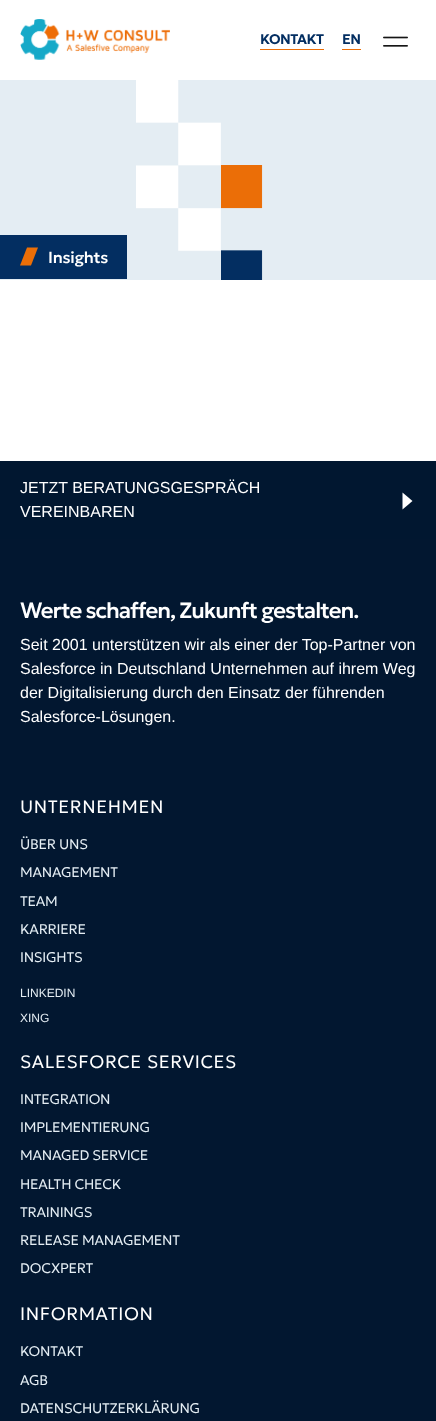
async function draw(canvas) {
	canvas.width = 436;
	canvas.height = 1421;
	const c = canvas.getContext('2d');
	c.miterLimit = 4;
	c.fontKerning = 'normal';
	async function loadImage(src) {
		const img = new Image();
		img.src = src;
		await img.decode();
		return img;
	}

	c.fillStyle = '#fff';
	c.fillRect(0, 0, 436, 1421);
	c.drawImage(await loadImage('img1.png'), 20, 19, 150, 41);
	c.fillStyle = '#eb6e07';
	c.fillRect(260, 49, 64, 1);
	c.letterSpacing = '-0.5px';
	c.font = '600 14px Geologica';
	c.fillStyle = '#032e61';
	c.fillText('KONTAKT', 260, 44);
	c.fillStyle = '#eb6e07';
	c.fillRect(342, 49, 19, 1);
	c.fillStyle = '#032e61';
	c.fillText('EN', 342, 44);
	c.drawImage(await loadImage('img2.png'), 383, 36, 25, 11);
	c.fillStyle = '#e4edf3';
	c.fillRect(0, 80, 436, 200);
	c.drawImage(await loadImage('img3.png'), 136, 80, 127, 200);
	c.fillStyle = '#032e61';
	c.fillRect(0, 235, 127, 44);
	c.fillStyle = '#eb6e07';
	c.beginPath();
	c.moveTo(27, 247.5);
	c.lineTo(20, 265.5);
	c.lineTo(31, 265.5);
	c.lineTo(38, 247.5);
	c.closePath();
	c.fill();
	c.letterSpacing = '-0.25px';
	c.font = '500 16px Geologica';
	c.fillStyle = '#fff';
	c.fillText('Insights', 48, 263);
	c.fillStyle = '#011730';
	c.fillRect(0, 461, 436, 78);
	c.letterSpacing = '0px';
	c.font = '16px Liberation Sans';
	c.fillStyle = '#fff';
	c.fillText('JETZT BERATUNGSGESPRÄCH', 20, 493);
	c.fillText('VEREINBAREN', 20, 517);
	c.beginPath();
	c.moveTo(412.5, 501);
	c.lineTo(402.5, 509.5);
	c.lineTo(402.5, 492.5);
	c.closePath();
	c.fill();
	c.fillStyle = '#021730';
	c.fillRect(0, 539, 436, 882);
	c.letterSpacing = '-1px';
	c.font = '500 22px Geologica';
	c.fillStyle = '#fff';
	c.fillText('Werte schaffen, Zukunft gestalten.', 20, 618);
	c.letterSpacing = '0px';
	c.font = '16px Liberation Sans';
	for (const [text, x, y] of [
		['Seit 2001 unterstützen wir als einer der Top-Partner von', 20, 650],
		['Salesforce in Deutschland Unternehmen auf ihrem Weg', 20, 674],
		['der Digitalisierung durch den Einsatz der führenden', 20, 698],
		['Salesforce-Lösungen.', 20, 722],
	]) {
		c.fillText(text, x, y);
	}
	c.letterSpacing = '0.6px';
	c.font = '300 18px Geologica';
	c.fillText('UNTERNEHMEN', 20, 813);
	c.letterSpacing = '-0.25px';
	c.font = '300 14px Geologica';
	c.fillStyle = '#e4edf3';
	for (const [text, x, y] of [
		['ÜBER UNS', 20, 849],
		['MANAGEMENT', 20, 877],
		['TEAM', 20, 906],
		['KARRIERE', 20, 934],
		['INSIGHTS', 20, 962],
	]) {
		c.fillText(text, x, y);
	}
	c.letterSpacing = '0px';
	c.font = '12px Liberation Sans';
	c.fillText('LINKEDIN', 20, 997);
	c.fillText('XING', 20, 1022);
	c.letterSpacing = '0.6px';
	c.font = '300 18px Geologica';
	c.fillStyle = '#fff';
	c.fillText('SALESFORCE SERVICES', 20, 1068);
	c.letterSpacing = '-0.25px';
	c.font = '300 14px Geologica';
	c.fillStyle = '#e4edf3';
	for (const [text, x, y] of [
		['INTEGRATION', 20, 1104],
		['IMPLEMENTIERUNG', 20, 1132],
		['MANAGED SERVICE', 20, 1160],
		['HEALTH CHECK', 20, 1189],
		['TRAININGS', 20, 1217],
		['RELEASE MANAGEMENT', 20, 1245],
		['DOCXPERT', 20, 1273],
	]) {
		c.fillText(text, x, y);
	}
	c.letterSpacing = '0.6px';
	c.font = '300 18px Geologica';
	c.fillStyle = '#fff';
	c.fillText('INFORMATION', 20, 1320);
	c.letterSpacing = '-0.25px';
	c.font = '300 14px Geologica';
	c.fillStyle = '#e4edf3';
	for (const [text, x, y] of [
		['KONTAKT', 20, 1356],
		['AGB', 20, 1385],
		['DATENSCHUTZERKLÄRUNG', 20, 1413],
	]) {
		c.fillText(text, x, y);
	}
}

draw(document.querySelector('canvas'));
